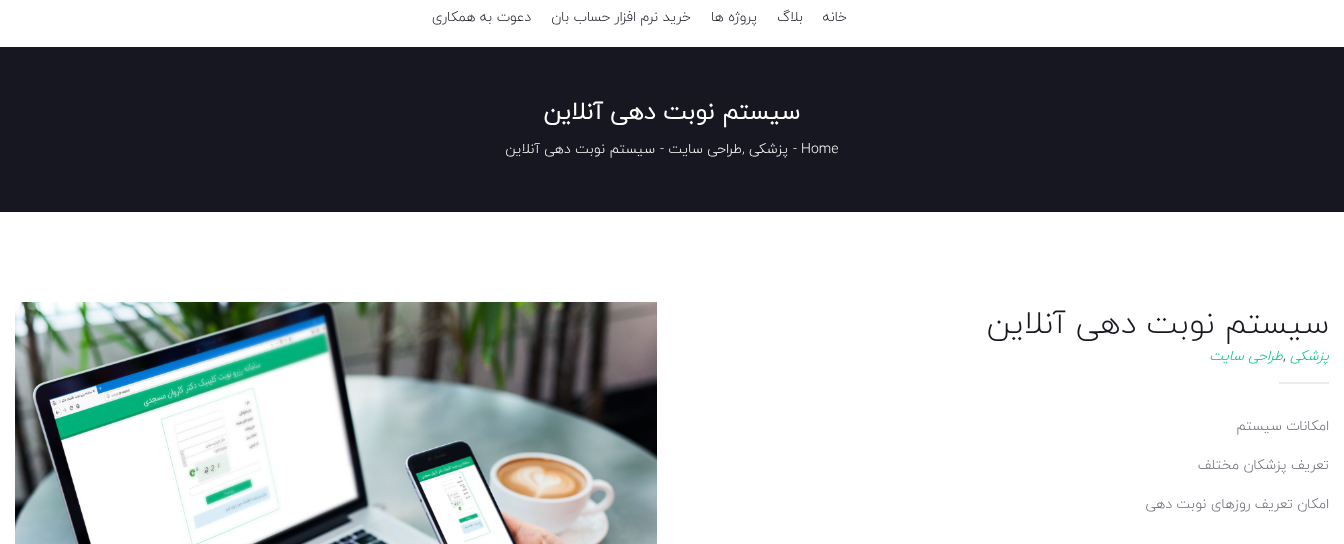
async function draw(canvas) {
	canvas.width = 1344;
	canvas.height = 544;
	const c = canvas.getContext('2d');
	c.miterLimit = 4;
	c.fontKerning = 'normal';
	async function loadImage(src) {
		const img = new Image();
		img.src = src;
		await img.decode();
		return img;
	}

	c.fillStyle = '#fff';
	c.fillRect(0, 0, 1344, 544);
	c.direction = 'rtl';
	c.font = '300 14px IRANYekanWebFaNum';
	c.fillStyle = '#171721';
	for (const [text, x, y] of [
		['خانه', 847, 21],
		['بلاگ', 803, 21],
		['پروژه ها', 757, 21],
		['خرید نرم افزار حساب بان', 691, 21],
		['دعوت به همکاری', 531, 21],
	]) {
		c.fillText(text, x, y);
	}
	c.fillRect(0, 47, 1344, 165);
	c.font = 'bold 24px IRANYekanWebFaNum';
	c.fillStyle = '#fff';
	c.fillText('سیستم نوبت دهی آنلاین', 800, 119);
	c.direction = 'ltr';
	c.font = '300 14px IRANYekanWebFaNum';
	c.fillText('Home', 801, 153);
	c.fillText('-', 793, 153);
	c.direction = 'rtl';
	c.fillText('پزشکی', 788, 153);
	c.fillText('طراحی سایت', 742, 153);
	c.direction = 'ltr';
	c.fillText('-', 660, 153);
	c.direction = 'rtl';
	c.fillText('سیستم نوبت دهی آنلاین', 655, 153);
	c.direction = 'ltr';
	c.fillText(',', 742, 153);
	c.direction = 'rtl';
	c.font = '300 32px IRANYekanWebFaNum';
	c.fillStyle = '#171721';
	c.fillText('سیستم نوبت دهی آنلاین', 1329, 333);
	c.font = 'italic 300 14px IRANYekanWebFaNum';
	c.fillStyle = '#00c282';
	c.fillText('پزشکی', 1329, 360);
	c.direction = 'ltr';
	c.font = '14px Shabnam';
	c.fillStyle = '#686876';
	c.fillText(',', 1283, 360);
	c.direction = 'rtl';
	c.font = 'italic 300 14px IRANYekanWebFaNum';
	c.fillStyle = '#00c282';
	c.fillText('طراحی سایت', 1283, 360);
	c.fillStyle = '#ececec';
	c.fillRect(1279, 382, 50, 2);
	c.font = '300 14px IRANYekanWebFaNum';
	c.fillStyle = '#686876';
	for (const [text, x, y] of [
		['امکانات سیستم', 1329, 430],
		['تعریف پزشکان مختلف', 1329, 469],
		['امکان تعریف روزهای نوبت دهی', 1329, 508],
	]) {
		c.fillText(text, x, y);
	}
	c.drawImage(await loadImage('img1.png'), 15, 302, 642, 242);
}

draw(document.querySelector('canvas'));
